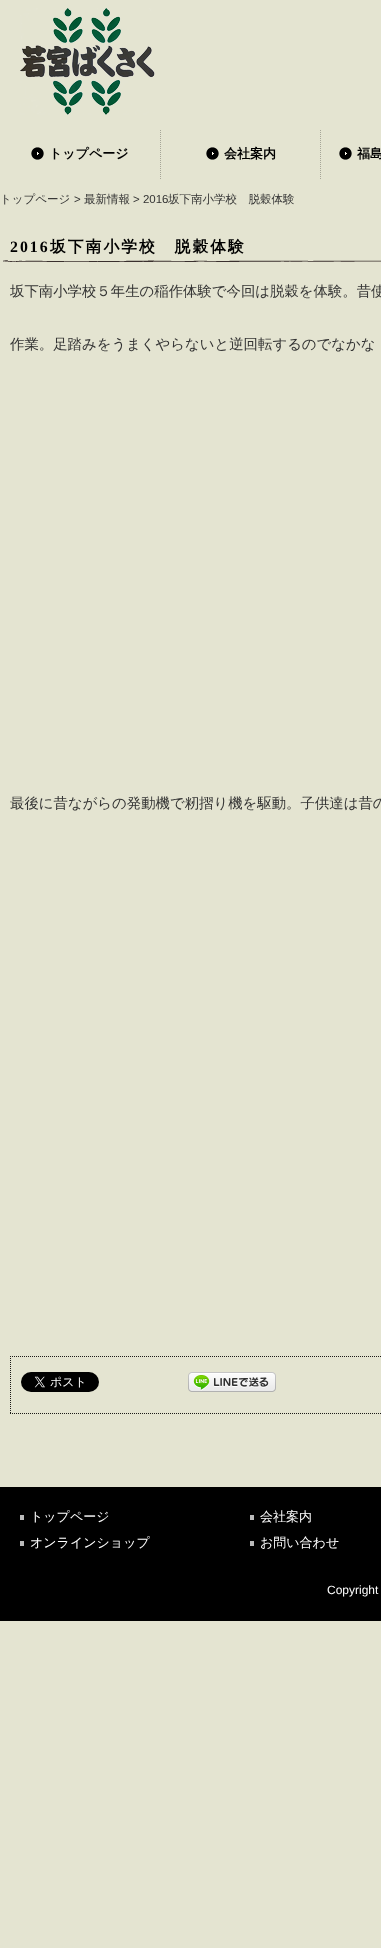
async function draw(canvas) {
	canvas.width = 381;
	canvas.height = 1948;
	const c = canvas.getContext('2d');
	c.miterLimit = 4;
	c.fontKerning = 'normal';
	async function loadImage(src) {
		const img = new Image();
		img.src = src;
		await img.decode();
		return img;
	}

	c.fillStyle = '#e4e4d1';
	c.fillRect(0, 0, 381, 1948);
	c.drawImage(await loadImage('img1.png'), 20, 8, 135, 107);
	c.drawImage(await loadImage('img2.png'), 31, 147, 13, 13);
	c.font = 'bold 13px WenQuanYi Zen Hei';
	c.fillStyle = '#000';
	c.fillText('トップページ', 49, 158);
	c.beginPath();
	c.moveTo(160.5, 130);
	c.lineTo(160.5, 180);
	c.strokeStyle = '#a6a698';
	c.setLineDash([1, 1]);
	c.stroke();
	c.drawImage(await loadImage('img2.png'), 206, 147, 13, 13);
	c.fillText('会社案内', 224, 158);
	c.beginPath();
	c.moveTo(320.5, 130);
	c.lineTo(320.5, 180);
	c.stroke();
	c.drawImage(await loadImage('img2.png'), 339, 147, 13, 13);
	c.fillText('福島', 357, 158);
	c.font = '500 11.5px WenQuanYi Zen Hei';
	c.fillStyle = '#333';
	c.fillText('トップページ', 0, 203);
	c.font = '11.5px Liberation Sans';
	c.fillText('>', 74, 203);
	c.font = '500 11.5px WenQuanYi Zen Hei';
	c.fillText('最新情報', 84, 203);
	c.font = '11.5px Liberation Sans';
	c.fillText('> 2016', 133, 203);
	c.font = '500 11.5px WenQuanYi Zen Hei';
	c.fillText('坂下南小学校　脱穀体験', 168, 203);
	c.drawImage(await loadImage('img3.png'), 3, 260, 378, 2);
	c.letterSpacing = '2px';
	c.font = 'bold 15.8px Liberation Serif';
	c.fillStyle = '#000';
	c.fillText('2016', 10, 252);
	c.font = 'bold 15.8px WenQuanYi Zen Hei';
	c.fillText('坂下南小学校　脱穀体験', 50, 252);
	c.letterSpacing = '0px';
	c.font = '500 14.4px WenQuanYi Zen Hei';
	c.fillStyle = '#333';
	for (const [text, x, y] of [
		['坂下南小学校５年生の稲作体験で今回は脱穀を体験。昔使', 10, 296],
		['作業。足踏みをうまくやらないと逆回転するのでなかな', 10, 349],
		['最後に昔ながらの発動機で籾摺り機を駆動。子供達は昔の', 10, 808],
	]) {
		c.fillText(text, x, y);
	}
	c.beginPath();
	c.moveTo(10, 1356.5);
	c.lineTo(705, 1356.5);
	c.strokeStyle = '#1c1b18';
	c.stroke();
	c.beginPath();
	c.moveTo(10, 1413.5);
	c.lineTo(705, 1413.5);
	c.stroke();
	c.beginPath();
	c.moveTo(10.5, 1356);
	c.lineTo(10.5, 1414);
	c.stroke();
	c.drawImage(await loadImage('img4.png'), 21, 1372, 78, 20);
	c.drawImage(await loadImage('img5.png'), 188, 1372, 88, 20);
	c.fillStyle = '#000';
	c.fillRect(0, 1487, 381, 134);
	c.fillStyle = '#bababa';
	c.fillRect(20, 1515, 4, 5);
	c.font = '500 13px WenQuanYi Zen Hei';
	c.fillStyle = '#fff';
	c.fillText('トップページ', 30, 1521);
	c.fillStyle = '#bababa';
	c.fillRect(250, 1515, 4, 5);
	c.fillStyle = '#fff';
	c.fillText('会社案内', 260, 1521);
	c.fillStyle = '#bababa';
	c.fillRect(20, 1541, 4, 5);
	c.fillStyle = '#fff';
	c.fillText('オンラインショップ', 30, 1547);
	c.fillStyle = '#bababa';
	c.fillRect(250, 1541, 4, 5);
	c.fillStyle = '#fff';
	c.fillText('お問い合わせ', 260, 1547);
	c.font = '12px Liberation Sans';
	c.fillText('Copyright', 327, 1594);
}

draw(document.querySelector('canvas'));
